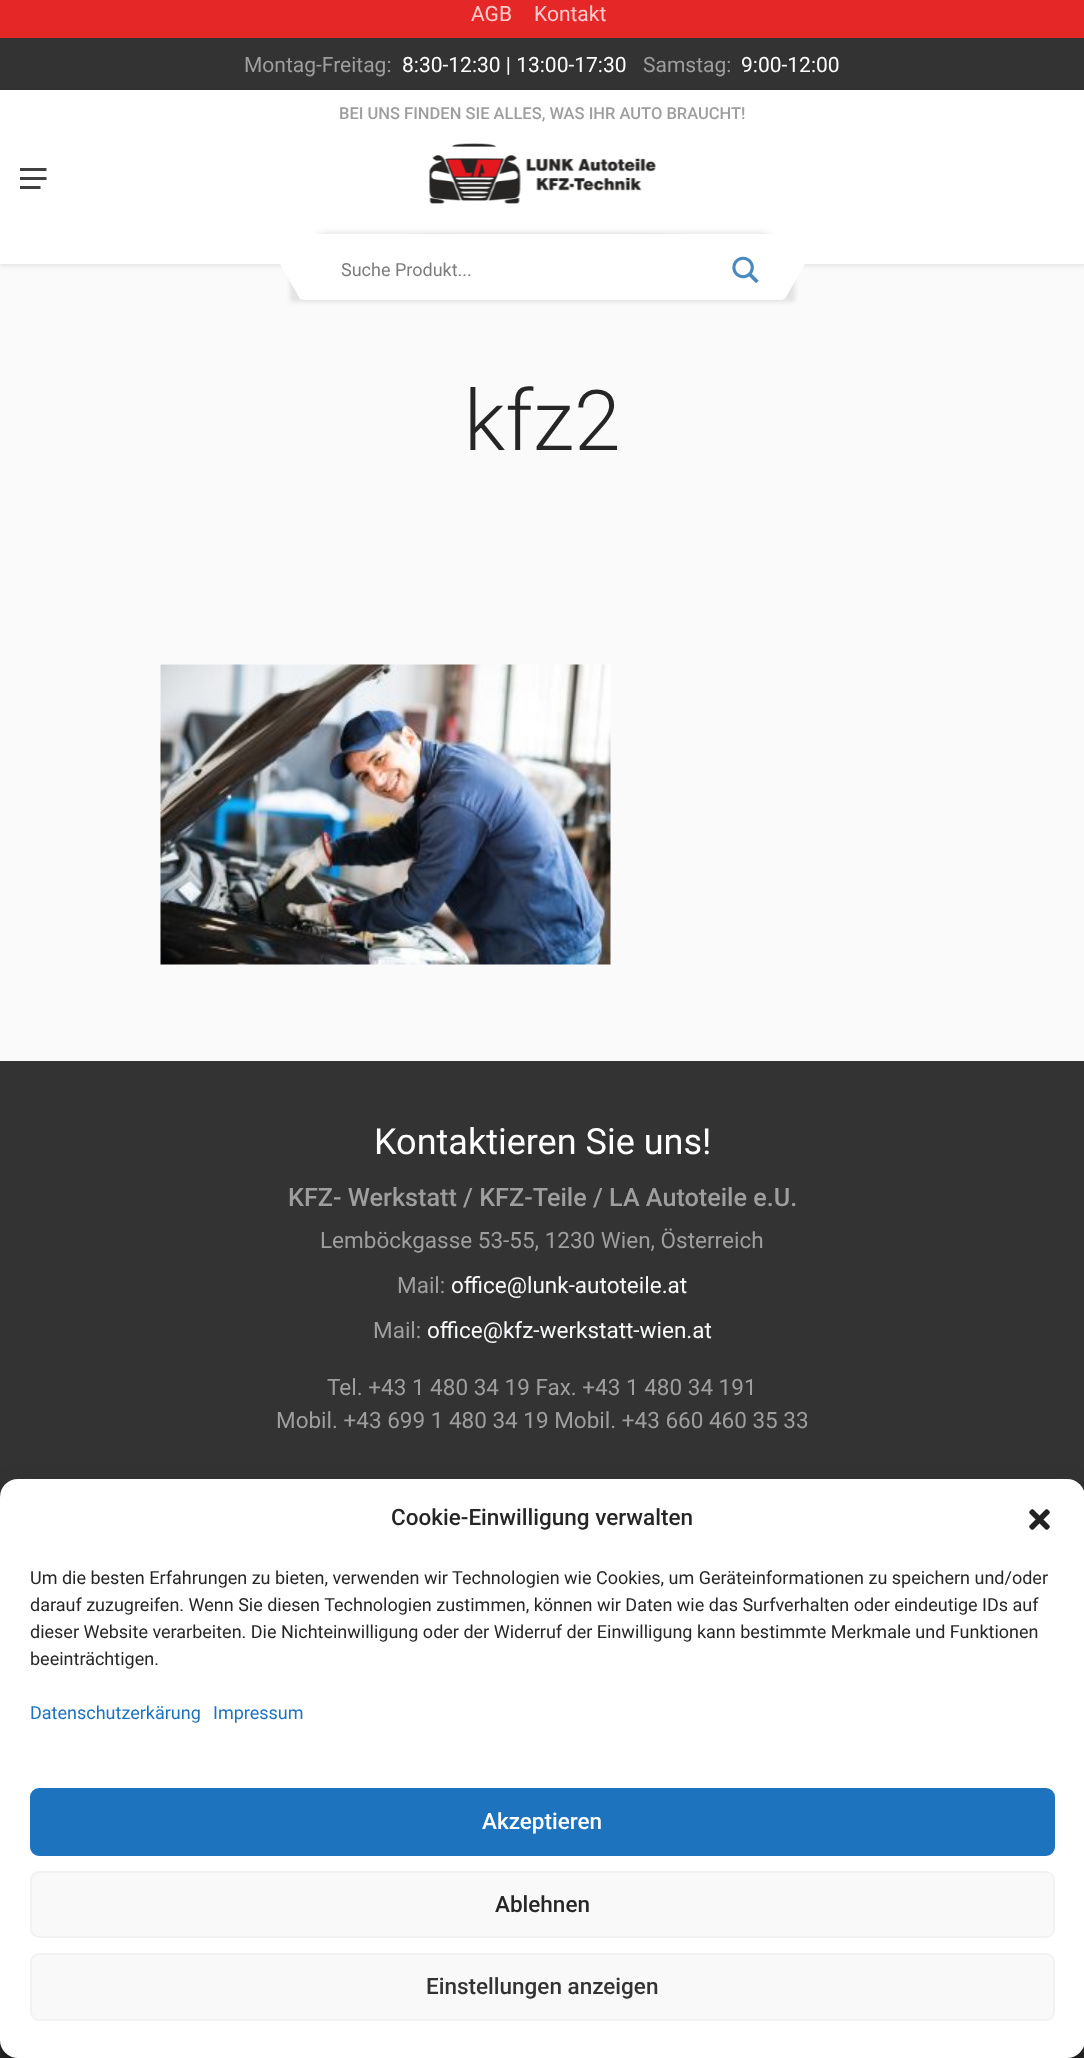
async function draw(canvas) {
	canvas.width = 1084;
	canvas.height = 2058;
	const c = canvas.getContext('2d');
	c.miterLimit = 4;
	c.fontKerning = 'normal';
	async function loadImage(src) {
		const img = new Image();
		img.src = src;
		await img.decode();
		return img;
	}

	c.fillStyle = '#fafafa';
	c.fillRect(0, 0, 1084, 2058);
	c.fillStyle = '#00000017';
	c.filter = 'blur(2px)';
	c.beginPath();
	c.rect(0, -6, 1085, 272);
	c.fill();
	c.filter = 'none';
	c.fillStyle = '#fff';
	c.fillRect(0, 90, 1084, 174);
	c.fillStyle = '#e52727';
	c.fillRect(0, 0, 1084, 38);
	c.font = '21px Roboto';
	c.fillStyle = '#fcc';
	c.fillText('AGB', 471, 21);
	c.fillText('Kontakt', 534, 21);
	c.fillStyle = '#333';
	c.fillRect(0, 38, 1084, 52);
	c.fillStyle = '#9e9e9e';
	c.fillText('Montag-Freitag:', 244, 72);
	c.fillStyle = '#fff';
	c.fillText('8:30-12:30 | 13:00-17:30', 402, 72);
	c.fillStyle = '#9e9e9e';
	c.fillText('Samstag:', 643, 72);
	c.fillStyle = '#fff';
	c.fillText('9:00-12:00', 741, 72);
	c.font = '500 16.5px Roboto';
	c.fillStyle = '#9e9e9e';
	c.fillText('BEI UNS FINDEN SIE ALLES, WAS IHR AUTO BRAUCHT!', 339, 119);
	c.drawImage(await loadImage('img1.png'), 429, 143, 227, 61);
	c.drawImage(await loadImage('img2.png'), 20, 168, 27, 21);
	c.save();
	c.beginPath();
	c.rect(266, 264, 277, 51);
	c.clip();
	c.fillStyle = '#00000017';
	c.filter = 'blur(2px)';
	c.beginPath();
	c.roundRect(290, 266, 277, 36, 3);
	c.fill();
	c.filter = 'none';
	c.restore();
	c.fillStyle = '#fff';
	c.beginPath();
	c.moveTo(280, 264);
	c.lineTo(557, 264);
	c.lineTo(578, 300);
	c.lineTo(304, 300);
	c.lineTo(300, 299);
	c.lineTo(299, 297);
	c.closePath();
	c.fill();
	c.save();
	c.beginPath();
	c.rect(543, 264, 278, 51);
	c.clip();
	c.fillStyle = '#00000017';
	c.filter = 'blur(2px)';
	c.beginPath();
	c.roundRect(518, 266, 277, 36, 3);
	c.fill();
	c.filter = 'none';
	c.restore();
	c.save();
	c.beginPath();
	c.rect(543, 264, 278, 51);
	c.clip();
	c.beginPath();
	c.moveTo(527, 264);
	c.lineTo(805, 264);
	c.lineTo(786, 297);
	c.bezierCurveTo(785, 299, 783, 300, 781, 300);
	c.lineTo(506, 300);
	c.closePath();
	c.fill();
	c.restore();
	c.save();
	c.beginPath();
	c.rect(311, 219, 465, 15);
	c.clip();
	c.fillStyle = '#fafafa';
	c.beginPath();
	c.moveTo(490, 232);
	c.bezierCurveTo(391, 232, 310, 239, 310, 248);
	c.lineTo(310, 308);
	c.lineTo(311, 309);
	c.lineTo(310, 249);
	c.bezierCurveTo(310, 241, 391, 234, 490, 234);
	c.lineTo(596, 234);
	c.bezierCurveTo(695, 234, 776, 241, 776, 249);
	c.lineTo(775, 309);
	c.lineTo(776, 308);
	c.lineTo(776, 248);
	c.bezierCurveTo(776, 239, 695, 232, 596, 232);
	c.closePath();
	c.fill();
	c.restore();
	c.save();
	c.beginPath();
	c.rect(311, 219, 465, 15);
	c.clip();
	c.fillStyle = '#0000001f';
	c.filter = 'blur(3px)';
	c.beginPath();
	c.roundRect(311, 233, 465, 90, 15);
	c.fill();
	c.filter = 'none';
	c.restore();
	c.font = '18px Roboto';
	c.fillStyle = '#7d7d7d';
	c.fillText('Suche Produkt...', 341, 276);
	c.drawImage(await loadImage('img3.png'), 732, 256, 27, 28);
	c.font = '300 84px Roboto';
	c.fillStyle = '#262626';
	c.fillText('kfz2', 464, 450);
	c.drawImage(await loadImage('img4.png'), 160, 664, 451, 301);
	c.fillStyle = '#333';
	c.fillRect(0, 1061, 1084, 436);
	c.font = '36px Roboto';
	c.fillStyle = '#fff';
	c.fillText('Kontaktieren Sie uns!', 374, 1154);
	c.font = '500 25.2px Roboto';
	c.fillStyle = '#9e9e9e';
	c.fillText('KFZ- Werkstatt / KFZ-Teile / LA Autoteile e.U.', 288, 1206);
	c.font = '22.5px Roboto';
	c.fillText('Lemböckgasse 53-55, 1230 Wien, Österreich', 320, 1248);
	c.fillText('Mail:', 397, 1293);
	c.fillStyle = '#f8f9fa';
	c.fillText('office@lunk-autoteile.at', 451, 1293);
	c.fillStyle = '#9e9e9e';
	c.fillText('Mail:', 373, 1338);
	c.fillStyle = '#f8f9fa';
	c.fillText('office@kfz-werkstatt-wien.at', 427, 1338);
	c.fillStyle = '#9e9e9e';
	c.fillText('Tel. +43 1 480 34 19 Fax. +43 1 480 34 191', 327, 1395);
	c.fillText('Mobil. +43 699 1 480 34 19 Mobil. +43 660 460 35 33', 276, 1428);
	c.fillStyle = '#2b2b2b';
	c.fillRect(0, 2040, 1084, 18);
	c.fillStyle = '#0000003b';
	c.filter = 'blur(4.5px)';
	c.beginPath();
	c.roundRect(0, 1488, 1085, 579, 18);
	c.fill();
	c.filter = 'none';
	c.fillStyle = '#00000030';
	c.filter = 'blur(15px)';
	c.beginPath();
	c.roundRect(0, 1494, 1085, 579, 18);
	c.fill();
	c.filter = 'none';
	c.fillStyle = '#fff';
	c.beginPath();
	c.roundRect(0, 1479, 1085, 579, 18);
	c.fill();
	c.font = '500 22.5px Roboto';
	c.fillStyle = '#262626';
	c.fillText('Cookie-Einwilligung verwalten', 391, 1525);
	c.drawImage(await loadImage('img5.png'), 1029, 1509, 21, 21);
	c.font = '18px Roboto';
	for (const [text, x, y] of [
		['Um die besten Erfahrungen zu bieten, verwenden wir Technologien wie Cookies, um Geräteinformationen zu speichern und/oder', 30, 1584],
		['darauf zuzugreifen. Wenn Sie diesen Technologien zustimmen, können wir Daten wie das Surfverhalten oder eindeutige IDs auf', 30, 1611],
		['dieser Website verarbeiten. Die Nichteinwilligung oder der Widerruf der Einwilligung kann bestimmte Merkmale und Funktionen', 30, 1638],
		['beeinträchtigen.', 30, 1665],
	]) {
		c.fillText(text, x, y);
	}
	c.fillStyle = '#1e73be';
	c.fillText('Datenschutzerkärung', 30, 1719);
	c.fillText('Impressum', 213, 1719);
	c.beginPath();
	c.roundRect(31, 1789, 1023, 66, 8);
	c.fill();
	c.strokeStyle = '#1e73be';
	c.lineWidth = 2;
	c.stroke();
	c.font = '500 22.5px Roboto';
	c.fillStyle = '#fff';
	c.fillText('Akzeptieren', 482, 1829);
	c.fillStyle = '#f9f9f9';
	c.beginPath();
	c.roundRect(31, 1872, 1023, 65, 8);
	c.fill();
	c.strokeStyle = '#f2f2f2';
	c.stroke();
	c.fillStyle = '#262626';
	c.fillText('Ablehnen', 495, 1912);
	c.fillStyle = '#f9f9f9';
	c.beginPath();
	c.roundRect(31, 1954, 1023, 66, 8);
	c.fill();
	c.stroke();
	c.fillStyle = '#333';
	c.fillText('Einstellungen anzeigen', 426, 1994);
}

draw(document.querySelector('canvas'));
